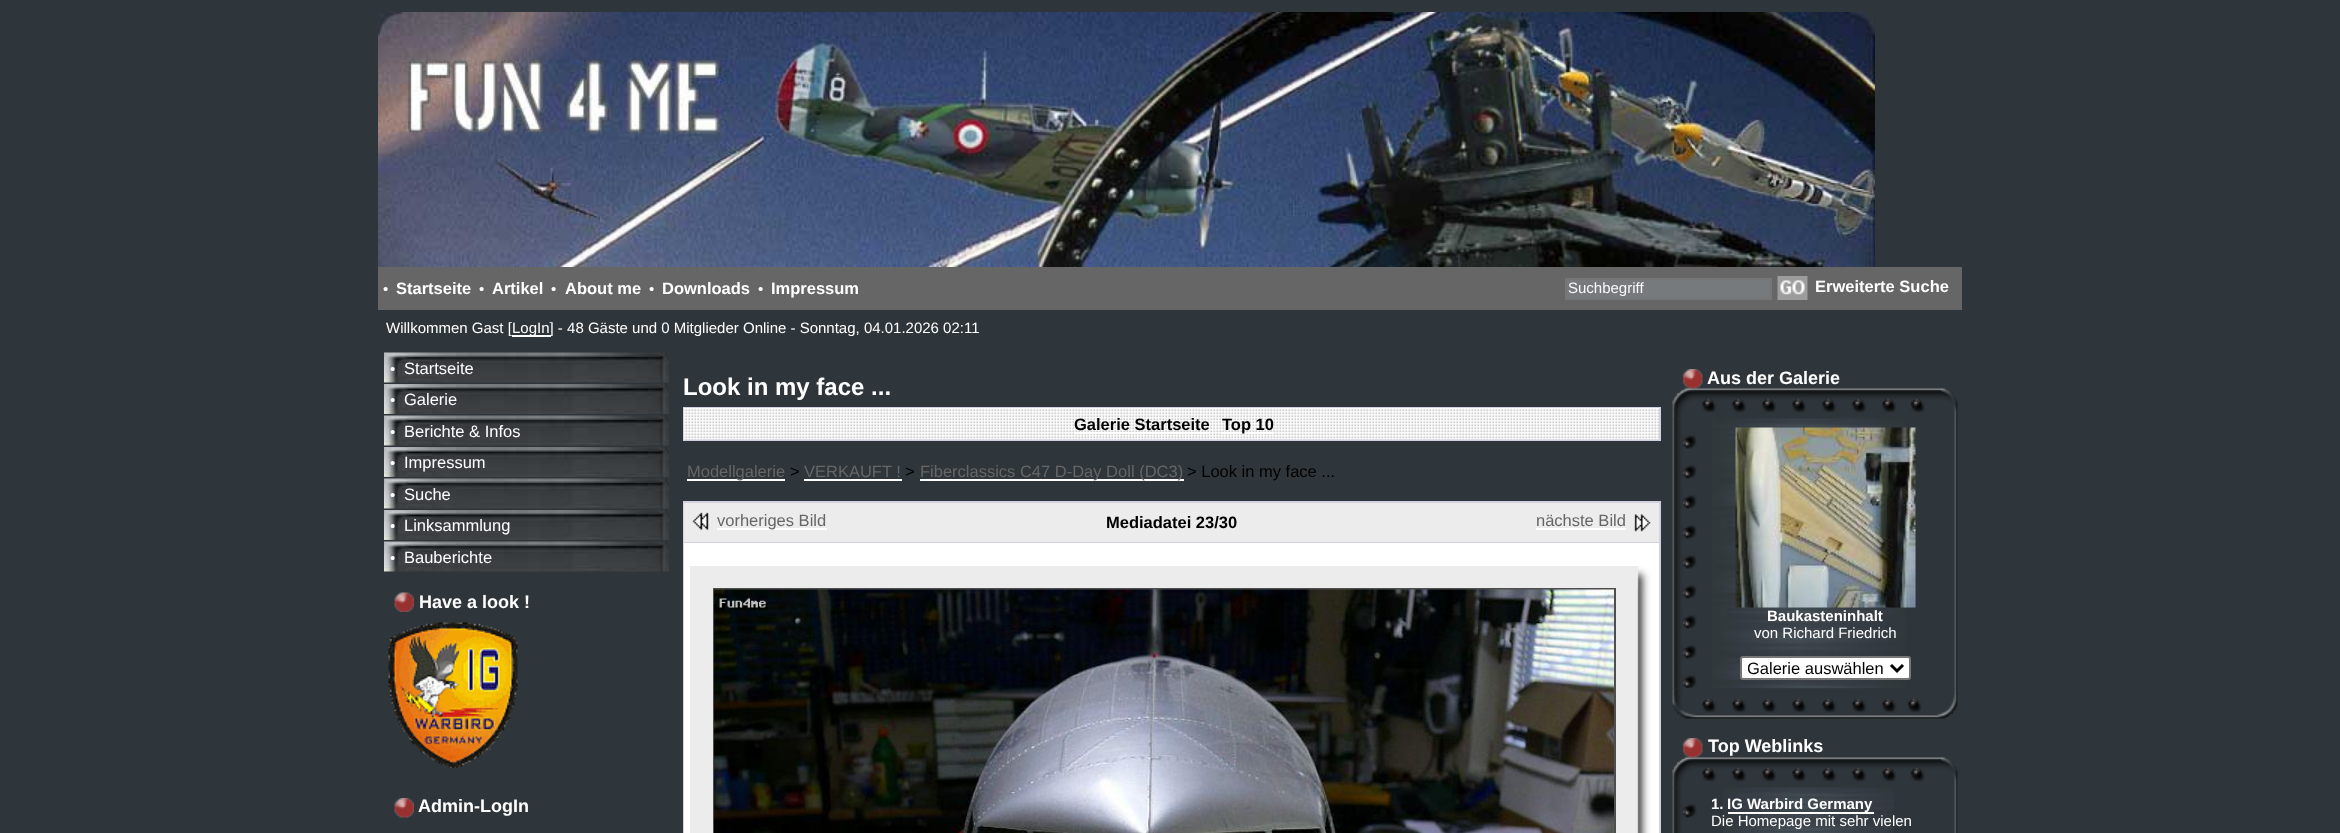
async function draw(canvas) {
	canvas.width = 2340;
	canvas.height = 833;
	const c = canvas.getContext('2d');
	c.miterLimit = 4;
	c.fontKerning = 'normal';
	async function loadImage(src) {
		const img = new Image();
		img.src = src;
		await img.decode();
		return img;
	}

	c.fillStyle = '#2f363b';
	c.fillRect(0, 0, 2340, 833);
	c.drawImage(await loadImage('img1.png'), 378, 12, 1497, 255);
	c.fillStyle = '#666';
	c.fillRect(378, 267, 1584, 43);
	c.font = '15px Liberation Sans';
	c.fillStyle = '#fff';
	c.fillText('•', 383, 294);
	c.font = 'bold 16.5px Liberation Sans';
	c.fillText('Startseite', 396, 294);
	c.font = '15px Liberation Sans';
	c.fillText('•', 479, 294);
	c.font = 'bold 16.5px Liberation Sans';
	c.fillText('Artikel', 492, 294);
	c.font = '15px Liberation Sans';
	c.fillText('•', 551, 294);
	c.font = 'bold 16.5px Liberation Sans';
	c.fillText('About me', 565, 294);
	c.font = '15px Liberation Sans';
	c.fillText('•', 649, 294);
	c.font = 'bold 16.5px Liberation Sans';
	c.fillText('Downloads', 662, 294);
	c.font = '15px Liberation Sans';
	c.fillText('•', 758, 294);
	c.font = 'bold 16.5px Liberation Sans';
	c.fillText('Impressum', 771, 294);
	c.fillStyle = '#777a7d';
	c.beginPath();
	c.rect(1566, 279, 205, 20);
	c.fill();
	c.strokeStyle = '#767676';
	c.lineWidth = 2;
	c.stroke();
	c.font = '15px Liberation Sans';
	c.fillStyle = '#f8f8f8';
	c.fillText('Suchbegriff', 1568, 293);
	c.drawImage(await loadImage('img2.png'), 1777, 276, 31, 24);
	c.font = 'bold 16.5px Liberation Sans';
	c.fillStyle = '#fff';
	c.fillText('Erweiterte Suche', 1815, 292);
	c.font = '15px Liberation Sans';
	c.fillText('Willkommen Gast [', 386, 333);
	c.fillRect(512, 335, 39, 2);
	c.fillText('LogIn] - 48 Gäste und 0 Mitglieder Online - Sonntag, 04.01.2026 02:11', 512, 333);
	c.drawImage(await loadImage('img3.png'), 384, 352, 285, 31);
	c.fillText('•', 390, 374);
	c.font = '16.5px Liberation Sans';
	c.fillText('Startseite', 404, 374);
	c.drawImage(await loadImage('img4.png'), 384, 384, 285, 30);
	c.font = '15px Liberation Sans';
	c.fillText('•', 390, 405);
	c.font = '16.5px Liberation Sans';
	c.fillText('Galerie', 404, 405);
	c.drawImage(await loadImage('img3.png'), 384, 415, 285, 31);
	c.font = '15px Liberation Sans';
	c.fillText('•', 390, 437);
	c.font = '16.5px Liberation Sans';
	c.fillText('Berichte & Infos', 404, 437);
	c.drawImage(await loadImage('img4.png'), 384, 447, 285, 30);
	c.font = '15px Liberation Sans';
	c.fillText('•', 390, 468);
	c.font = '16.5px Liberation Sans';
	c.fillText('Impressum', 404, 468);
	c.drawImage(await loadImage('img3.png'), 384, 478, 285, 31);
	c.font = '15px Liberation Sans';
	c.fillText('•', 390, 500);
	c.font = '16.5px Liberation Sans';
	c.fillText('Suche', 404, 500);
	c.drawImage(await loadImage('img4.png'), 384, 510, 285, 30);
	c.font = '15px Liberation Sans';
	c.fillText('•', 390, 531);
	c.font = '16.5px Liberation Sans';
	c.fillText('Linksammlung', 404, 531);
	c.drawImage(await loadImage('img3.png'), 384, 541, 285, 31);
	c.font = '15px Liberation Sans';
	c.fillText('•', 390, 563);
	c.font = '16.5px Liberation Sans';
	c.fillText('Bauberichte', 404, 563);
	c.drawImage(await loadImage('img5.png'), 394, 592, 20, 20);
	c.font = 'bold 18px Liberation Sans';
	c.fillText('Have a look !', 419, 608);
	c.drawImage(await loadImage('img6.png'), 388, 622, 130, 146);
	c.drawImage(await loadImage('img7.png'), 394, 798, 20, 20);
	c.fillText('Admin-LogIn', 418, 812);
	c.font = 'bold 24px Liberation Sans';
	c.fillText('Look in my face ...', 683, 395);
	c.strokeStyle = '#d1d1e1';
	c.strokeRect(684, 408, 976, 32);
	c.drawImage(await loadImage('img8.png'), 684, 408, 975, 32);
	c.font = 'bold 16.5px Liberation Sans';
	c.fillStyle = '#000';
	c.fillText('Galerie Startseite', 1074, 430);
	c.fillStyle = '#fff';
	c.fillRect(1074, 432, 135, 2);
	c.fillRect(1221, 432, 53, 2);
	c.fillStyle = '#000';
	c.fillText('Top 10', 1222, 430);
	c.fillStyle = '#fff';
	c.fillRect(687, 479, 98, 2);
	c.font = '16.5px Liberation Sans';
	c.fillStyle = '#666';
	c.fillText('Modellgalerie', 687, 477);
	c.fillStyle = '#000';
	c.fillText('>', 790, 477);
	c.fillStyle = '#666';
	c.fillText('VERKAUFT !', 804, 477);
	c.fillStyle = '#fff';
	c.fillRect(804, 479, 98, 2);
	c.fillStyle = '#000';
	c.fillText('>', 905, 477);
	c.fillStyle = '#fff';
	c.fillRect(920, 479, 264, 2);
	c.fillStyle = '#666';
	c.fillText('Fiberclassics C47 D-Day Doll (DC3)', 920, 477);
	c.fillStyle = '#000';
	c.fillText('> Look in my face ...', 1187, 477);
	c.strokeRect(684, 502, 976, 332);
	c.fillStyle = '#ececec';
	c.fillRect(684, 503, 975, 39);
	c.fillStyle = '#d1d1e1';
	c.fillRect(684, 542, 975, 1);
	c.drawImage(await loadImage('img9.png'), 692, 512, 17, 18);
	c.fillStyle = '#fff';
	c.fillRect(717, 528, 110, 2);
	c.fillStyle = '#666';
	c.fillText('vorheriges Bild', 717, 526);
	c.font = 'bold 16.5px Liberation Sans';
	c.fillStyle = '#000';
	c.fillText('Mediadatei 23/30', 1106, 528);
	c.font = '16.5px Liberation Sans';
	c.fillStyle = '#666';
	c.fillText('nächste Bild', 1536, 526);
	c.fillStyle = '#fff';
	c.fillRect(1536, 528, 90, 2);
	c.drawImage(await loadImage('img10.png'), 1634, 514, 17, 18);
	c.fillRect(684, 543, 975, 290);
	c.fillStyle = '#ececec';
	c.fillRect(690, 566, 949, 267);
	c.drawImage(await loadImage('img11.png'), 1637, 566, 16, 22);
	c.strokeStyle = '#4e4e4e';
	c.strokeRect(714, 589, 901, 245);
	c.drawImage(await loadImage('img12.png'), 714, 589, 900, 244);
	c.drawImage(await loadImage('img13.png'), 1637, 588, 16, 245);
	c.drawImage(await loadImage('img14.png'), 1682, 369, 21, 20);
	c.font = 'bold 18px Liberation Sans';
	c.fillStyle = '#fff';
	c.fillText('Aus der Galerie', 1707, 384);
	c.drawImage(await loadImage('img16.png'), 1672, 418, 25, 271);
	c.drawImage(await loadImage('img17.png'), 1712, 418, 194, 271);
	c.drawImage(await loadImage('img19.png'), 1954, 418, 4, 271);
	c.drawImage(await loadImage('img15.png'), 1672, 388, 286, 31);
	c.drawImage(await loadImage('img18.png'), 1735, 427, 181, 181);
	c.font = 'bold 15px Liberation Sans';
	c.fillText('Baukasteninhalt', 1767, 621);
	c.font = '15px Liberation Sans';
	c.fillText('von Richard Friedrich', 1754, 638);
	c.beginPath();
	c.roundRect(1741, 657, 169, 22, 2);
	c.fill();
	c.strokeStyle = '#767676';
	c.stroke();
	c.beginPath();
	c.moveTo(1891, 665);
	c.lineTo(1897, 671);
	c.lineTo(1903, 665);
	c.strokeStyle = '#000';
	c.lineWidth = 3;
	c.stroke();
	c.save();
	c.beginPath();
	c.rect(1748, 657, 138, 21);
	c.clip();
	c.font = '16.5px Liberation Sans';
	c.fillStyle = '#000';
	c.fillText('Galerie auswählen', 1747, 674);
	c.restore();
	c.drawImage(await loadImage('img20.png'), 1672, 688, 286, 31);
	c.drawImage(await loadImage('img14.png'), 1682, 738, 21, 20);
	c.font = 'bold 18px Liberation Sans';
	c.fillText('Top Weblinks', 1708, 752);
	c.drawImage(await loadImage('img22.png'), 1672, 787, 25, 46);
	c.drawImage(await loadImage('img23.png'), 1723, 787, 171, 46);
	c.drawImage(await loadImage('img24.png'), 1954, 787, 4, 46);
	c.drawImage(await loadImage('img21.png'), 1672, 757, 286, 31);
	c.font = 'bold 15px Liberation Sans';
	c.fillText('1.', 1711, 809);
	c.fillRect(1728, 812, 146, 2);
	c.fillText('IG Warbird Germany', 1727, 809);
	c.font = '15px Liberation Sans';
	c.fillText('Die Homepage mit sehr vielen', 1711, 826);
}

draw(document.querySelector('canvas'));
